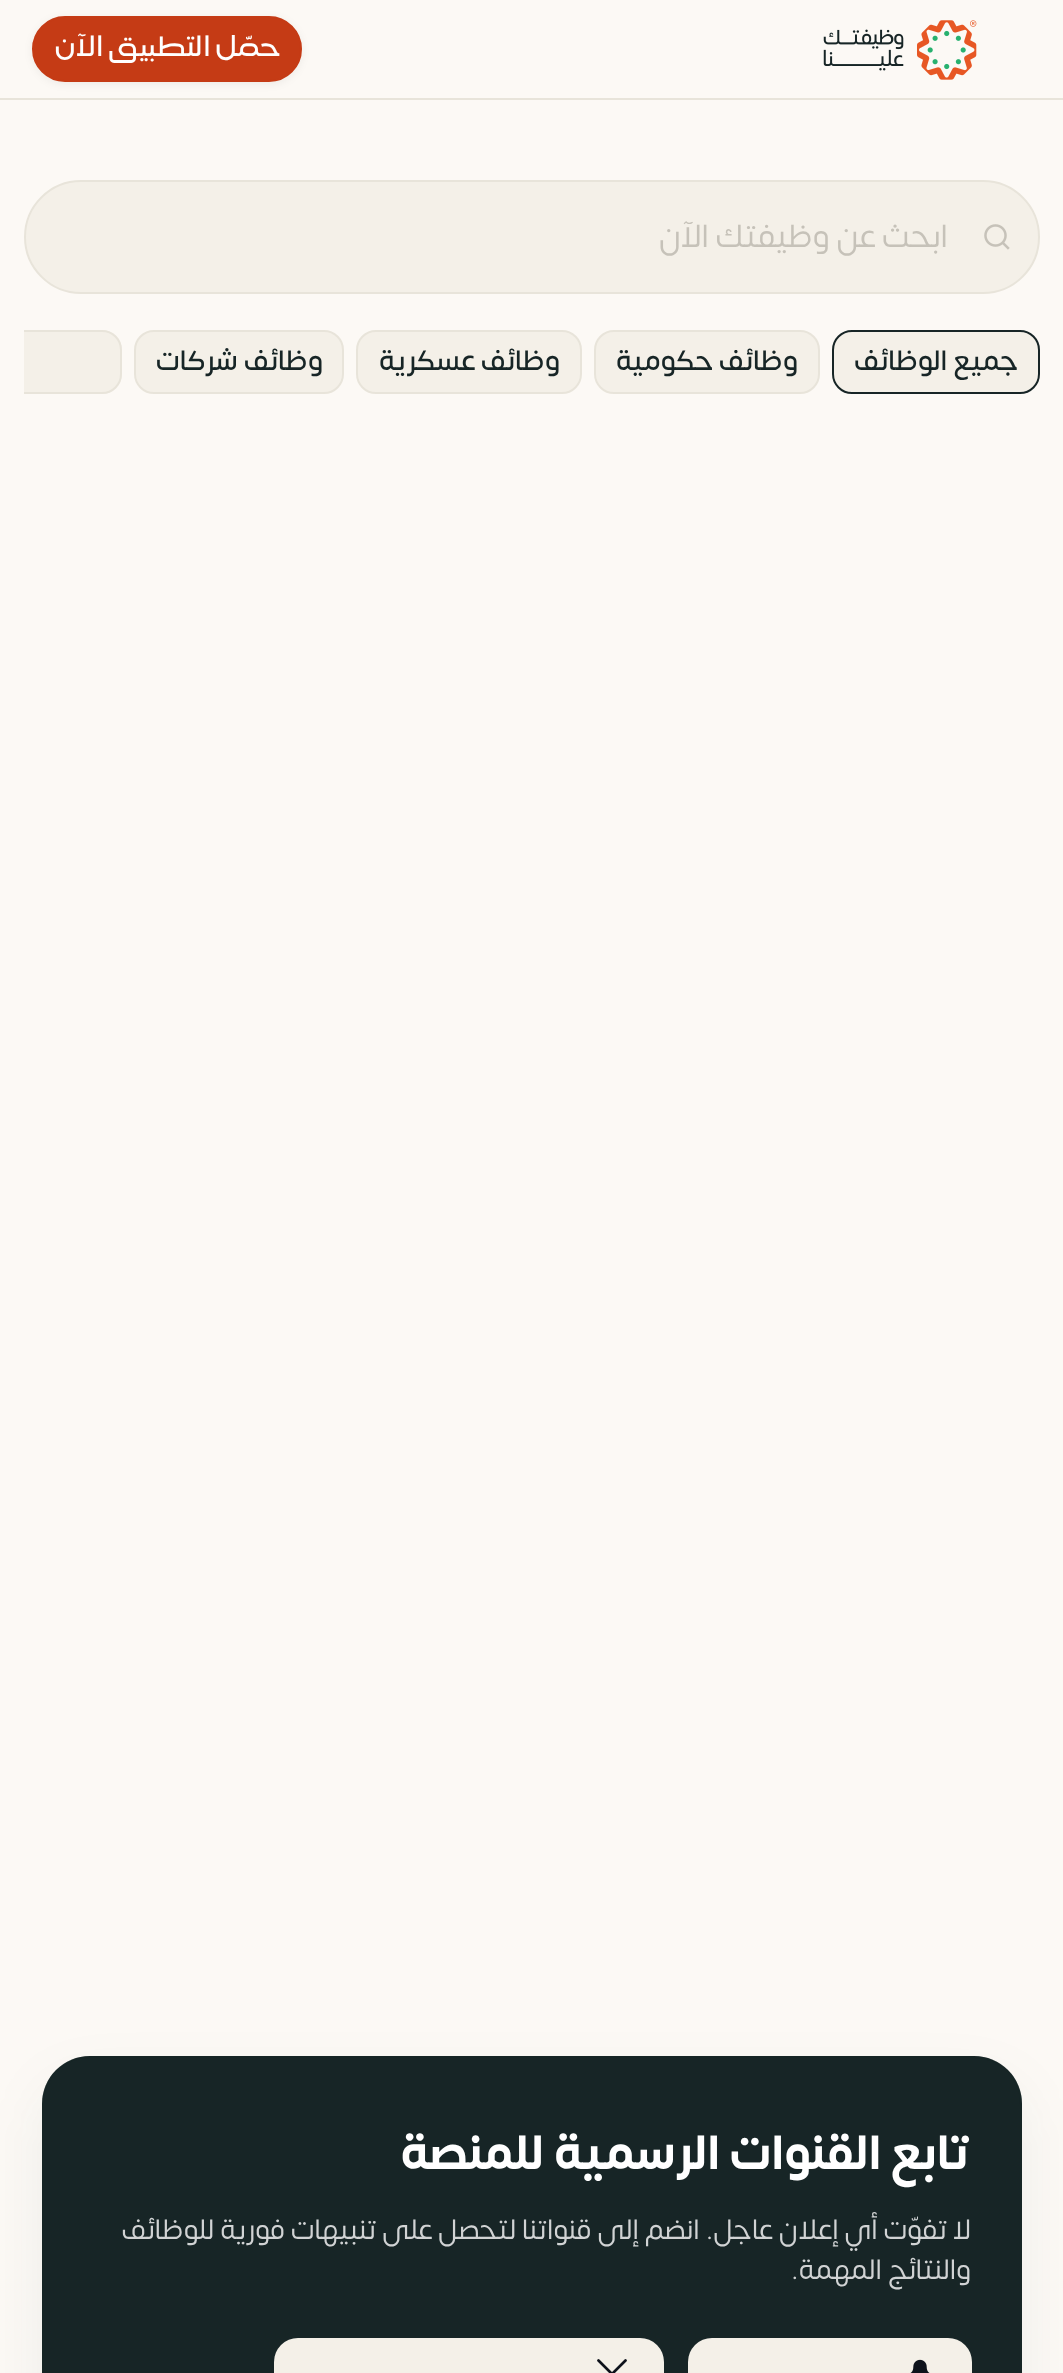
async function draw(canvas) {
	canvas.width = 1063;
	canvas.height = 2373;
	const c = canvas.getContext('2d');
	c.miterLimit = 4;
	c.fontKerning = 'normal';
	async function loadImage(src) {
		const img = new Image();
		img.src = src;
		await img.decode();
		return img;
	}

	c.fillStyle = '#fcf9f5';
	c.fillRect(0, 0, 1063, 2373);
	c.fillStyle = '#e8e4da';
	c.fillRect(0, 98, 1063, 2);
	c.drawImage(await loadImage('img1.png'), 823, 20, 154, 60);
	c.fillStyle = '#0000000f';
	c.filter = 'blur(4px)';
	c.beginPath();
	c.roundRect(32, 18, 270, 66, 33);
	c.fill();
	c.filter = 'none';
	c.fillStyle = '#c53b15';
	c.beginPath();
	c.roundRect(33, 17, 268, 64, 32);
	c.fill();
	c.strokeStyle = '#c53b15';
	c.lineWidth = 2;
	c.stroke();
	c.direction = 'rtl';
	c.font = '600 25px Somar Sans';
	c.fillStyle = '#fff';
	c.fillText('حمّل التطبيق الآن', 281, 56);
	c.fillStyle = '#f4f0e8';
	c.beginPath();
	c.roundRect(25, 181, 1014, 112, 56);
	c.fill();
	c.strokeStyle = '#e8e4da';
	c.stroke();
	c.drawImage(await loadImage('img2.png'), 984, 224, 26, 26);
	c.font = '32px Somar Sans';
	c.fillStyle = '#c6c2b9';
	c.fillText('ابحث عن وظيفتك الآن', 948, 247);
	c.fillStyle = '#f4f0e8';
	c.beginPath();
	c.roundRect(833, 331, 206, 62, 19);
	c.fill();
	c.strokeStyle = '#172526';
	c.stroke();
	c.font = '500 28px Somar Sans';
	c.fillStyle = '#172526';
	c.fillText('جميع الوظائف', 1018, 370);
	c.fillStyle = '#f4f0e8';
	c.beginPath();
	c.roundRect(595, 331, 224, 62, 19);
	c.fill();
	c.strokeStyle = '#e8e4da';
	c.stroke();
	c.fillStyle = '#172526';
	c.fillText('وظائف حكومية', 798, 370);
	c.fillStyle = '#f4f0e8';
	c.beginPath();
	c.roundRect(357, 331, 224, 62, 19);
	c.fill();
	c.stroke();
	c.fillStyle = '#172526';
	c.fillText('وظائف عسكرية', 560, 370);
	c.fillStyle = '#f4f0e8';
	c.beginPath();
	c.roundRect(135, 331, 208, 62, 19);
	c.fill();
	c.stroke();
	c.fillStyle = '#172526';
	c.fillText('وظائف شركات', 323, 370);
	c.fillStyle = '#f4f0e8';
	c.beginPath();
	c.roundRect(24, 330, 98, 64, [0, 20, 20, 0]);
	c.fill();
	c.save();
	c.beginPath();
	c.rect(24, 330, 1016, 72);
	c.clip();
	c.beginPath();
	c.roundRect(-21, 331, 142, 62, 19);
	c.stroke();
	c.restore();
	c.fillStyle = '#1725260f';
	c.filter = 'blur(30px)';
	c.beginPath();
	c.roundRect(42, 2084, 980, 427, 48);
	c.fill();
	c.filter = 'none';
	c.fillStyle = '#172526';
	c.beginPath();
	c.roundRect(42, 2056, 980, 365, 48);
	c.fill();
	c.beginPath();
	c.roundRect(43, 2057, 978, 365, 47);
	c.strokeStyle = '#17252666';
	c.stroke();
	c.font = 'bold 48px Somar Sans';
	c.fillStyle = '#fff';
	c.fillText('تابع القنوات الرسمية للمنصة', 971, 2169);
	c.font = '28px Somar Sans';
	c.fillStyle = '#d1d3d4';
	c.fillText('لا تفوّت أي إعلان عاجل. انضم إلى قنواتنا لتحصل على تنبيهات فورية للوظائف', 971, 2239);
	c.fillText('والنتائج المهمة.', 971, 2279);
	c.fillStyle = '#f4f0e8';
	c.beginPath();
	c.roundRect(688, 2338, 284, 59, 24);
	c.fill();
	c.drawImage(await loadImage('img3.png'), 910, 2359, 20, 14);
	c.beginPath();
	c.roundRect(274, 2338, 390, 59, 24);
	c.fill();
	c.beginPath();
	c.moveTo(598.5, 2360.5);
	c.lineTo(625.5, 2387.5);
	c.moveTo(625.5, 2360.5);
	c.lineTo(598.5, 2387.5);
	c.strokeStyle = '#0e121b';
	c.lineWidth = 2.7;
	c.lineCap = 'round';
	c.lineJoin = 'round';
	c.stroke();
}

draw(document.querySelector('canvas'));
